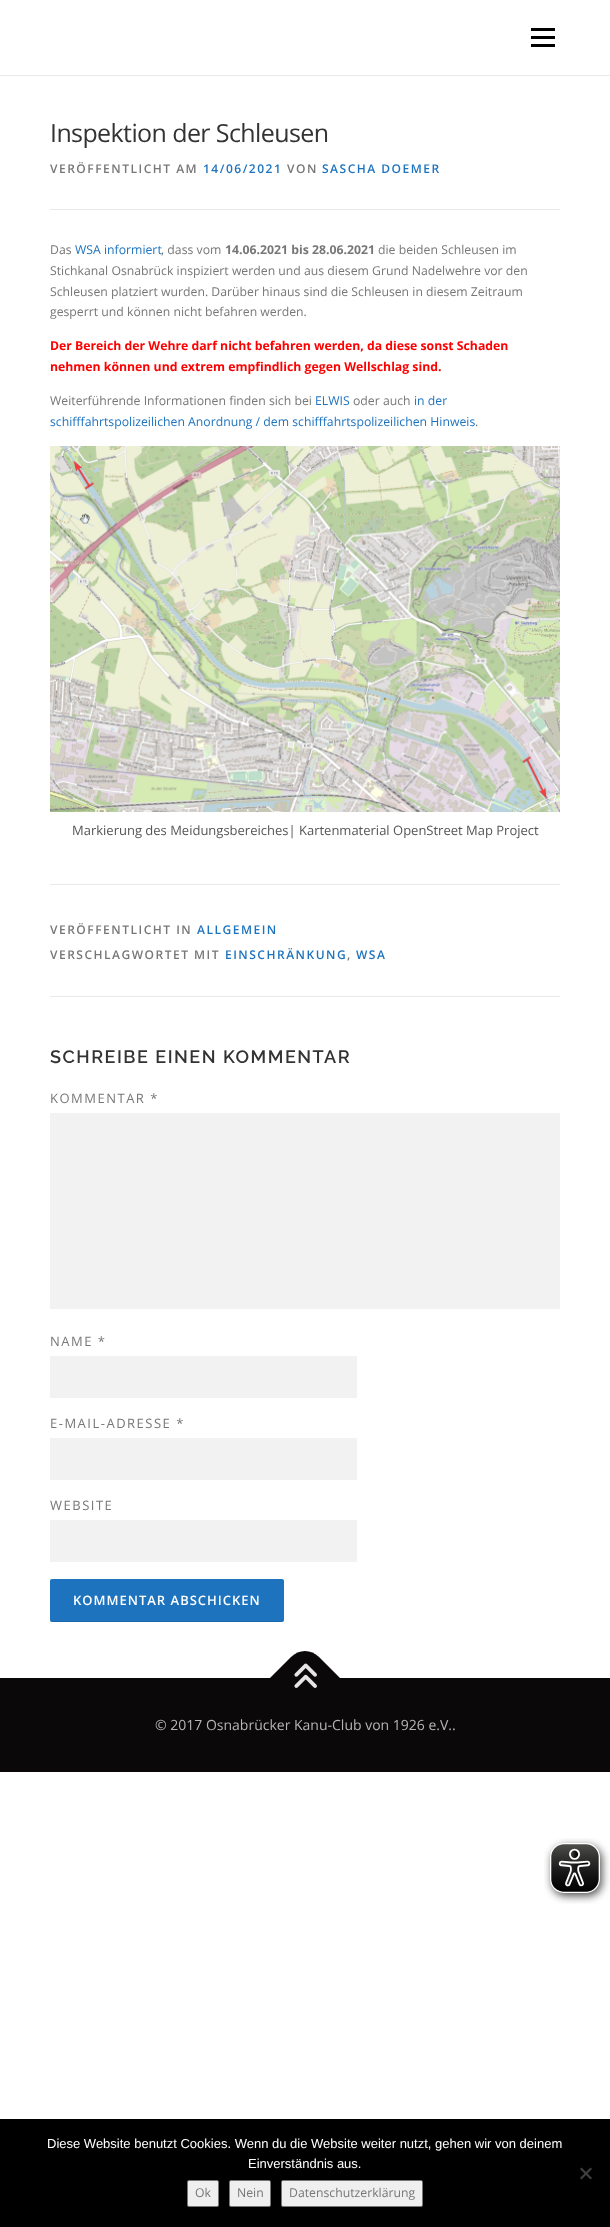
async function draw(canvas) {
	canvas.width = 610;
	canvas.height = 2227;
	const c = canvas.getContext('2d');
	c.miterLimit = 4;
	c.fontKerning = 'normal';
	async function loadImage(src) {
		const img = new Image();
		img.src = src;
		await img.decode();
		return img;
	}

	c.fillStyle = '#fff';
	c.fillRect(0, 0, 610, 2227);
	for (const [x, y, w, h, color] of [
		[531, 36, 24, 3, '#000'],
		[531, 28, 24, 3, '#000'],
		[531, 44, 24, 3, '#000'],
		[0, 75, 610, 1, '#e9e9e9'],
	]) {
		c.fillStyle = color;
		c.fillRect(x, y, w, h);
	}
	c.letterSpacing = '-0.6px';
	c.font = '25px Open Sans';
	c.fillStyle = '#333';
	c.fillText('Inspektion der Schleusen', 50, 142);
	c.fillStyle = '#e9e9e9';
	c.fillRect(50, 209, 510, 1);
	c.letterSpacing = '1.5px';
	c.font = '600 12px Open Sans';
	c.fillStyle = '#777';
	c.fillText('VERÖFFENTLICHT AM', 50, 173);
	c.fillStyle = '#1e73be';
	c.fillText('14/06/2021', 203, 173);
	c.fillStyle = '#777';
	c.fillText('VON', 287, 173);
	c.fillStyle = '#1e73be';
	c.fillText('SASCHA DOEMER', 322, 173);
	c.letterSpacing = '0px';
	c.font = '12.25px Open Sans';
	c.fillStyle = '#777';
	c.fillText('Das', 50, 254);
	c.fillStyle = '#1e73be';
	c.fillText('WSA informiert', 75, 254);
	c.fillStyle = '#777';
	c.fillText(', dass vom', 161, 254);
	c.font = 'bold 12.25px Open Sans';
	c.fillText('14.06.2021 bis 28.06.2021', 225, 254);
	c.font = '12.25px Open Sans';
	for (const [text, x, y] of [
		['die beiden Schleusen im', 378, 254],
		['Stichkanal Osnabrück inspiziert werden und aus diesem Grund Nadelwehre vor den', 50, 275],
		['Schleusen platziert wurden. Darüber hinaus sind die Schleusen in diesem Zeitraum', 50, 296],
		['gesperrt und können nicht befahren werden.', 50, 316],
	]) {
		c.fillText(text, x, y);
	}
	c.font = 'bold 12.25px Open Sans';
	c.fillStyle = '#f00';
	c.fillText('Der Bereich der Wehre darf nicht befahren werden, da diese sonst Schaden', 50, 350);
	c.fillText('nehmen können und extrem empfindlich gegen Wellschlag sind.', 50, 371);
	c.font = '12.25px Open Sans';
	c.fillStyle = '#777';
	c.fillText('Weiterführende Informationen finden sich bei', 50, 405);
	c.fillStyle = '#1e73be';
	c.fillText('ELWIS', 315, 405);
	c.fillStyle = '#777';
	c.fillText('oder auch', 353, 405);
	c.fillStyle = '#1e73be';
	c.fillText('in der', 414, 405);
	c.fillText('schifffahrtspolizeilichen Anordnung / dem schifffahrtspolizeilichen Hinweis', 50, 426);
	c.fillStyle = '#777';
	c.fillText('.', 475, 426);
	c.drawImage(await loadImage('img1.png'), 50, 446, 510, 366);
	c.font = '13px Open Sans';
	c.fillStyle = '#555';
	c.fillText('Markierung des Meidungsbereiches| Kartenmaterial OpenStreet Map Project', 72, 835);
	c.fillStyle = '#e9e9e9';
	c.fillRect(50, 884, 510, 1);
	c.letterSpacing = '1.5px';
	c.font = '600 12px Open Sans';
	c.fillStyle = '#777';
	c.fillText('VERÖFFENTLICHT IN', 50, 934);
	c.fillStyle = '#1e73be';
	c.fillText('ALLGEMEIN', 197, 934);
	c.fillStyle = '#777';
	c.fillText('VERSCHLAGWORTET MIT', 50, 959);
	c.fillStyle = '#1e73be';
	c.fillText('EINSCHRÄNKUNG', 225, 959);
	c.fillStyle = '#777';
	c.fillText(',', 347, 959);
	c.fillStyle = '#1e73be';
	c.fillText('WSA', 356, 959);
	c.fillStyle = '#e9e9e9';
	c.fillRect(50, 996, 510, 1);
	c.font = '600 18px Raleway';
	c.fillStyle = '#333';
	c.fillText('SCHREIBE EINEN KOMMENTAR', 50, 1063);
	c.font = '13px Open Sans';
	c.fillStyle = '#777';
	c.fillText('KOMMENTAR *', 50, 1103);
	c.fillStyle = '#f2f2f2';
	c.fillRect(50, 1113, 510, 196);
	c.fillStyle = '#777';
	c.fillText('NAME *', 50, 1346);
	c.fillStyle = '#f2f2f2';
	c.fillRect(50, 1356, 307, 42);
	c.fillStyle = '#777';
	c.fillText('E-MAIL-ADRESSE *', 50, 1428);
	c.fillStyle = '#f2f2f2';
	c.fillRect(50, 1438, 307, 42);
	c.fillStyle = '#777';
	c.fillText('WEBSITE', 50, 1510);
	c.fillStyle = '#f2f2f2';
	c.fillRect(50, 1520, 307, 42);
	c.fillStyle = '#1e73be';
	c.beginPath();
	c.roundRect(50, 1579, 234, 43, 2);
	c.fill();
	c.fillStyle = '#0000001a';
	c.beginPath();
	c.moveTo(50, 1619);
	c.lineTo(50, 1621);
	c.lineTo(52, 1622);
	c.lineTo(282, 1622);
	c.bezierCurveTo(284, 1622, 284, 1620, 284, 1619);
	c.bezierCurveTo(284, 1620, 283, 1621, 282, 1621);
	c.lineTo(52, 1621);
	c.bezierCurveTo(51, 1621, 50, 1620, 50, 1619);
	c.closePath();
	c.fill();
	c.letterSpacing = '1px';
	c.font = '600 13px Open Sans';
	c.fillStyle = '#fff';
	c.fillText('KOMMENTAR ABSCHICKEN', 73, 1605);
	c.fillStyle = '#0a0808';
	c.fillRect(0, 1678, 610, 94);
	c.beginPath();
	c.moveTo(270, 1678);
	c.lineTo(291, 1657);
	c.bezierCurveTo(299, 1649, 311, 1649, 319, 1657);
	c.lineTo(340, 1678);
	c.lineTo(305, 1714);
	c.closePath();
	c.fill();
	c.drawImage(await loadImage('img2.png'), 294, 1663, 23, 25);
	c.letterSpacing = '0px';
	c.font = '14px Open Sans';
	c.fillStyle = '#b6b5b5';
	c.fillText('© 2017 Osnabrücker Kanu-Club von 1926 e.V..', 155, 1730);
	c.drawImage(await loadImage('img3.png'), 544, 1838, 66, 66);
	c.fillStyle = '#000';
	c.fillRect(0, 2119, 610, 108);
	c.font = '13px Liberation Sans';
	c.fillStyle = '#fff';
	c.fillText('Diese Website benutzt Cookies. Wenn du die Website weiter nutzt, gehen wir von deinem', 47, 2148);
	c.fillText('Einverständnis aus.', 248, 2168);
	c.fillStyle = '#404040';
	c.beginPath();
	c.moveTo(590.5, 2167.5);
	c.lineTo(592, 2169);
	c.lineTo(581.5, 2179.5);
	c.lineTo(580, 2178);
	c.closePath();
	c.fill();
	c.beginPath();
	c.moveTo(580, 2169);
	c.lineTo(581.5, 2167.5);
	c.lineTo(592, 2178);
	c.lineTo(590.5, 2179.5);
	c.closePath();
	c.fill();
	c.fillStyle = '#efefef';
	c.beginPath();
	c.roundRect(187.5, 2180.5, 31, 26, 1.5);
	c.fill();
	c.strokeStyle = '#767676';
	c.stroke();
	c.font = '12.25px Open Sans';
	c.fillStyle = '#777';
	c.fillText('Ok', 195, 2197);
	c.fillStyle = '#efefef';
	c.beginPath();
	c.roundRect(229.5, 2180.5, 41, 26, 1.5);
	c.fill();
	c.stroke();
	c.fillStyle = '#777';
	c.fillText('Nein', 237, 2197);
	c.fillStyle = '#efefef';
	c.beginPath();
	c.roundRect(281.5, 2180.5, 141, 26, 1.5);
	c.fill();
	c.stroke();
	c.fillStyle = '#777';
	c.fillText('Datenschutzerklärung', 289, 2197);
}

draw(document.querySelector('canvas'));
